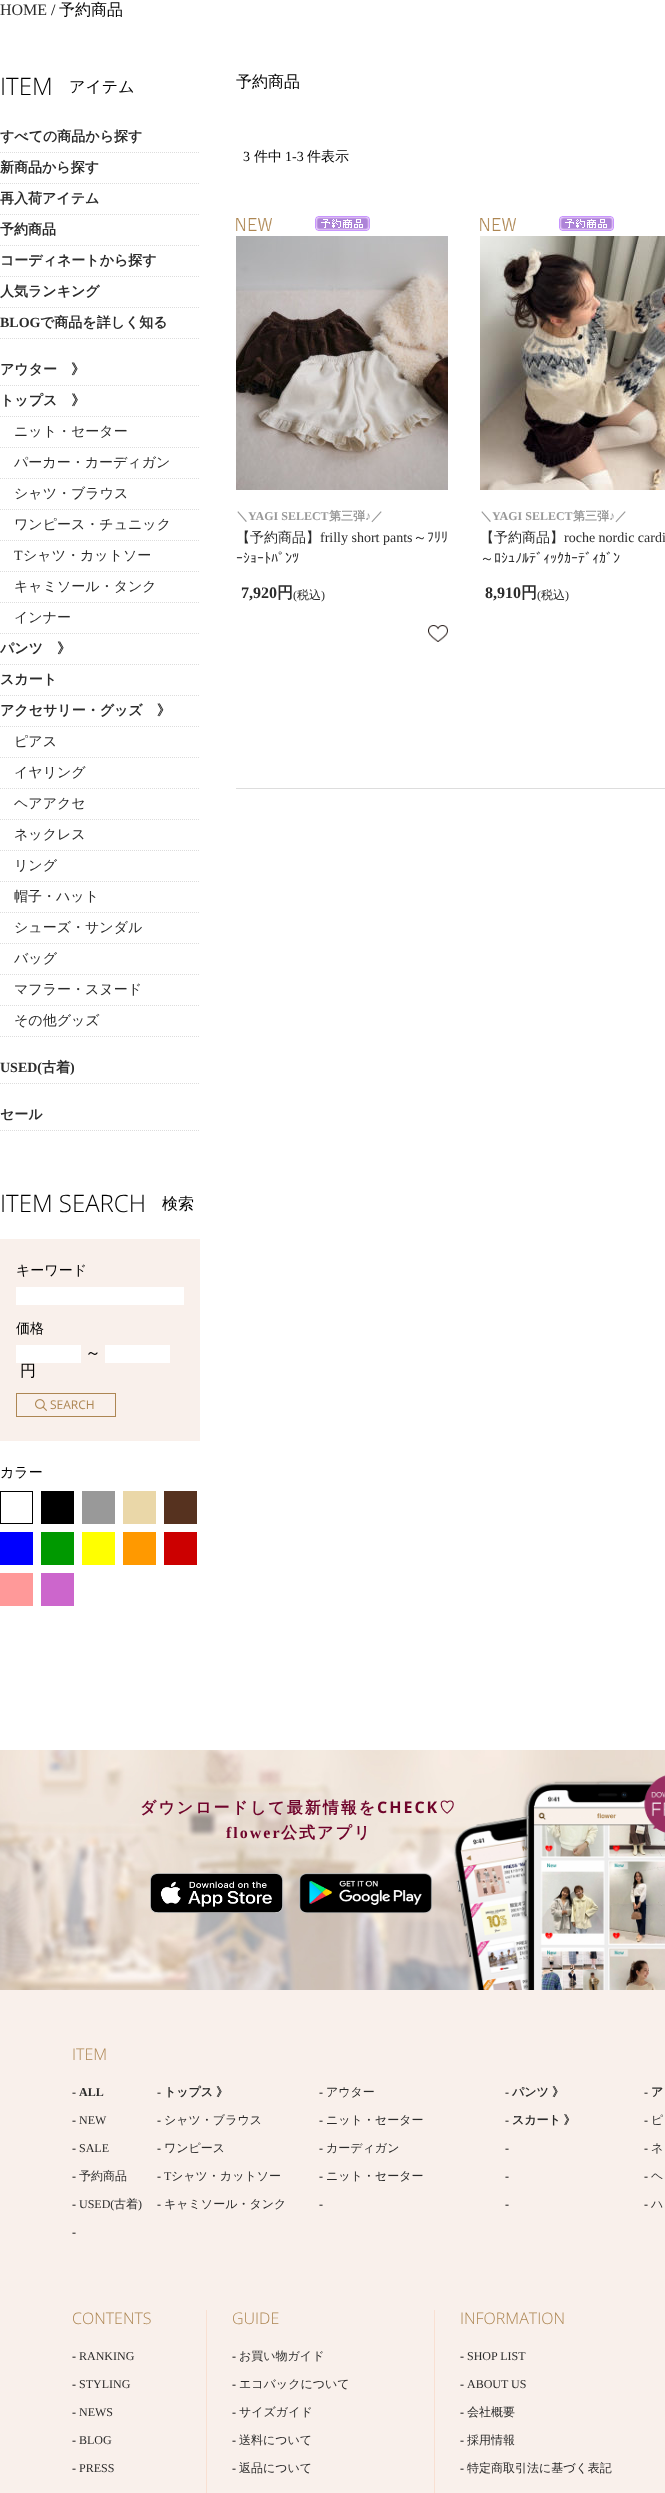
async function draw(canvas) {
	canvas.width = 665;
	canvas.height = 2493;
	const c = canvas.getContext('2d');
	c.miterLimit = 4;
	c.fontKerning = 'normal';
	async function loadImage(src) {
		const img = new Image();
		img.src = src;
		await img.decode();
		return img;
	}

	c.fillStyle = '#fff';
	c.fillRect(0, 0, 665, 2493);
	c.font = '16px Liberation Serif';
	c.fillStyle = '#2b2b2b';
	c.fillText('HOME', 0, 15);
	c.fillStyle = '#000';
	c.fillText('/', 51, 15);
	c.font = '500 16px WenQuanYi Zen Hei';
	c.fillText('予約商品', 59, 15);
	c.font = '300 24px Open Sans';
	c.fillText('ITEM', 0, 95);
	c.font = '500 16px WenQuanYi Zen Hei';
	c.fillText('アイテム', 69, 92);
	c.beginPath();
	c.moveTo(0, 152.5);
	c.lineTo(200, 152.5);
	c.strokeStyle = '#ddd';
	c.setLineDash([1, 1]);
	c.stroke();
	c.font = 'bold 14px WenQuanYi Zen Hei';
	c.fillStyle = '#2b2b2b';
	c.fillText('すべての商品から探す', 0, 141);
	c.beginPath();
	c.moveTo(0, 183.5);
	c.lineTo(200, 183.5);
	c.stroke();
	c.fillText('新商品から探す', 0, 172);
	c.beginPath();
	c.moveTo(0, 214.5);
	c.lineTo(200, 214.5);
	c.stroke();
	c.fillText('再入荷アイテム', 0, 203);
	c.beginPath();
	c.moveTo(0, 245.5);
	c.lineTo(200, 245.5);
	c.stroke();
	c.fillText('予約商品', 0, 234);
	c.beginPath();
	c.moveTo(0, 276.5);
	c.lineTo(200, 276.5);
	c.stroke();
	c.fillText('コーディネートから探す', 0, 265);
	c.beginPath();
	c.moveTo(0, 307.5);
	c.lineTo(200, 307.5);
	c.stroke();
	c.fillText('人気ランキング', 0, 296);
	c.beginPath();
	c.moveTo(0, 338.5);
	c.lineTo(200, 338.5);
	c.stroke();
	c.font = 'bold 14px Liberation Serif';
	c.fillText('BLOG', 0, 327);
	c.font = 'bold 14px WenQuanYi Zen Hei';
	c.fillText('で商品を詳しく知る', 40, 327);
	c.beginPath();
	c.moveTo(0, 385.5);
	c.lineTo(200, 385.5);
	c.stroke();
	c.fillText('アウター　》', 0, 374);
	c.beginPath();
	c.moveTo(0, 416.5);
	c.lineTo(200, 416.5);
	c.stroke();
	c.fillText('トップス　》', 0, 405);
	c.beginPath();
	c.moveTo(0, 447.5);
	c.lineTo(200, 447.5);
	c.stroke();
	c.font = '500 14px WenQuanYi Zen Hei';
	c.fillText('ニット・セーター', 14, 436);
	c.beginPath();
	c.moveTo(0, 478.5);
	c.lineTo(200, 478.5);
	c.stroke();
	c.fillText('パーカー・カーディガン', 14, 467);
	c.beginPath();
	c.moveTo(0, 509.5);
	c.lineTo(200, 509.5);
	c.stroke();
	c.fillText('シャツ・ブラウス', 14, 498);
	c.beginPath();
	c.moveTo(0, 540.5);
	c.lineTo(200, 540.5);
	c.stroke();
	c.fillText('ワンピース・チュニック', 14, 529);
	c.beginPath();
	c.moveTo(0, 571.5);
	c.lineTo(200, 571.5);
	c.stroke();
	c.font = '14px Liberation Serif';
	c.fillText('T', 14, 560);
	c.font = '500 14px WenQuanYi Zen Hei';
	c.fillText('シャツ・カットソー', 23, 560);
	c.beginPath();
	c.moveTo(0, 602.5);
	c.lineTo(200, 602.5);
	c.stroke();
	c.fillText('キャミソール・タンク', 14, 591);
	c.beginPath();
	c.moveTo(0, 633.5);
	c.lineTo(200, 633.5);
	c.stroke();
	c.fillText('インナー', 14, 622);
	c.beginPath();
	c.moveTo(0, 664.5);
	c.lineTo(200, 664.5);
	c.stroke();
	c.font = 'bold 14px WenQuanYi Zen Hei';
	c.fillText('パンツ　》', 0, 653);
	c.beginPath();
	c.moveTo(0, 695.5);
	c.lineTo(200, 695.5);
	c.stroke();
	c.fillText('スカート', 0, 684);
	c.beginPath();
	c.moveTo(0, 726.5);
	c.lineTo(200, 726.5);
	c.stroke();
	c.fillText('アクセサリー・グッズ　》', 0, 715);
	c.beginPath();
	c.moveTo(0, 757.5);
	c.lineTo(200, 757.5);
	c.stroke();
	c.font = '500 14px WenQuanYi Zen Hei';
	c.fillText('ピアス', 14, 746);
	c.beginPath();
	c.moveTo(0, 788.5);
	c.lineTo(200, 788.5);
	c.stroke();
	c.fillText('イヤリング', 14, 777);
	c.beginPath();
	c.moveTo(0, 819.5);
	c.lineTo(200, 819.5);
	c.stroke();
	c.fillText('ヘアアクセ', 14, 808);
	c.beginPath();
	c.moveTo(0, 850.5);
	c.lineTo(200, 850.5);
	c.stroke();
	c.fillText('ネックレス', 14, 839);
	c.beginPath();
	c.moveTo(0, 881.5);
	c.lineTo(200, 881.5);
	c.stroke();
	c.fillText('リング', 14, 870);
	c.beginPath();
	c.moveTo(0, 912.5);
	c.lineTo(200, 912.5);
	c.stroke();
	c.fillText('帽子・ハット', 14, 901);
	c.beginPath();
	c.moveTo(0, 943.5);
	c.lineTo(200, 943.5);
	c.stroke();
	c.fillText('シューズ・サンダル', 14, 932);
	c.beginPath();
	c.moveTo(0, 974.5);
	c.lineTo(200, 974.5);
	c.stroke();
	c.fillText('バッグ', 14, 963);
	c.beginPath();
	c.moveTo(0, 1005.5);
	c.lineTo(200, 1005.5);
	c.stroke();
	c.fillText('マフラー・スヌード', 14, 994);
	c.beginPath();
	c.moveTo(0, 1036.5);
	c.lineTo(200, 1036.5);
	c.stroke();
	c.fillText('その他グッズ', 14, 1025);
	c.beginPath();
	c.moveTo(0, 1083.5);
	c.lineTo(200, 1083.5);
	c.stroke();
	c.font = 'bold 14px Liberation Serif';
	c.fillText('USED(', 0, 1072);
	c.font = 'bold 14px WenQuanYi Zen Hei';
	c.fillText('古着', 42, 1072);
	c.font = 'bold 14px Liberation Serif';
	c.fillText(')', 70, 1072);
	c.beginPath();
	c.moveTo(0, 1130.5);
	c.lineTo(200, 1130.5);
	c.stroke();
	c.font = 'bold 14px WenQuanYi Zen Hei';
	c.fillText('セール', 0, 1119);
	c.font = '300 24px Open Sans';
	c.fillStyle = '#000';
	c.fillText('ITEM SEARCH', 0, 1212);
	c.font = '500 16px WenQuanYi Zen Hei';
	c.fillText('検索', 162, 1209);
	c.fillStyle = '#f9f0eb';
	c.fillRect(0, 1239, 200, 202);
	c.font = '500 14px WenQuanYi Zen Hei';
	c.fillStyle = '#000';
	c.fillText('キーワード', 16, 1275);
	c.fillStyle = '#fff';
	c.fillRect(16, 1287, 168, 18);
	c.fillStyle = '#000';
	c.fillText('価格', 16, 1333);
	c.fillStyle = '#fff';
	c.fillRect(16, 1345, 65, 18);
	c.font = '500 16px WenQuanYi Zen Hei';
	c.fillStyle = '#000';
	c.fillText('～', 85, 1358);
	c.fillStyle = '#fff';
	c.fillRect(105, 1345, 65, 18);
	c.fillStyle = '#000';
	c.fillText('円', 20, 1376);
	c.drawImage(await loadImage('img1.png'), 35, 1399, 12, 12);
	c.strokeStyle = '#ad8653';
	c.setLineDash([]);
	c.strokeRect(16.5, 1393.5, 99, 23);
	c.font = '12px Open Sans';
	c.fillStyle = '#ad8653';
	c.fillText('SEARCH', 50, 1409);
	c.font = '500 14px WenQuanYi Zen Hei';
	c.fillStyle = '#000';
	c.fillText('カラー', 0, 1477);
	c.strokeStyle = '#000';
	c.strokeRect(0.5, 1491.5, 32, 32);
	for (const [x, y, w, h, color] of [
		[41, 1491, 33, 33, '#000'],
		[82, 1491, 33, 33, '#999'],
		[123, 1491, 33, 33, '#ead7a8'],
		[164, 1491, 33, 33, '#56321f'],
		[0, 1532, 33, 33, '#00f'],
		[41, 1532, 33, 33, '#090'],
		[82, 1532, 33, 33, '#ff0'],
		[123, 1532, 33, 33, '#f90'],
		[164, 1532, 33, 33, '#c00'],
		[0, 1573, 33, 33, '#f99'],
		[41, 1573, 33, 33, '#c6c'],
	]) {
		c.fillStyle = color;
		c.fillRect(x, y, w, h);
	}
	c.font = '500 16px WenQuanYi Zen Hei';
	c.fillStyle = '#000';
	c.fillText('予約商品', 236, 87);
	c.font = '14px Liberation Serif';
	c.fillText('3', 243, 161);
	c.font = '500 14px WenQuanYi Zen Hei';
	c.fillText('件中', 254, 161);
	c.font = '14px Liberation Serif';
	c.fillText('1-3', 285, 161);
	c.font = '500 14px WenQuanYi Zen Hei';
	c.fillText('件表示', 307, 161);
	c.drawImage(await loadImage('img2.png'), 236, 218, 36, 13);
	c.drawImage(await loadImage('img3.png'), 315, 216, 55, 15);
	c.drawImage(await loadImage('img4.png'), 236, 236, 212, 254);
	c.font = 'bold 12px WenQuanYi Zen Hei';
	c.fillStyle = '#999';
	c.fillText('＼', 236, 520);
	c.font = 'bold 12px Liberation Serif';
	c.fillText('YAGI SELECT', 248, 520);
	c.font = 'bold 12px WenQuanYi Zen Hei';
	c.fillText('第三弾', 329, 520);
	c.font = 'bold 12px Liberation Serif';
	c.fillText('♪', 365, 520);
	c.font = 'bold 12px WenQuanYi Zen Hei';
	c.fillText('／', 371, 520);
	c.font = '500 14px WenQuanYi Zen Hei';
	c.fillStyle = '#2b2b2b';
	c.fillText('【予約商品】', 236, 542);
	c.font = '14px Liberation Serif';
	c.fillText('frilly short pants', 320, 542);
	c.font = '500 14px WenQuanYi Zen Hei';
	c.fillText('～', 413, 542);
	c.font = '14px IPAPGothic';
	c.fillText('ﾌﾘﾘ', 427, 542);
	c.fillText('ｰｼｮｰﾄﾊﾟﾝﾂ', 236, 563);
	c.font = 'bold 16px Liberation Serif';
	c.fillText('7,920', 241, 598);
	c.font = 'bold 16px WenQuanYi Zen Hei';
	c.fillText('円', 277, 598);
	c.font = '12px Liberation Serif';
	c.fillText('(', 293, 599);
	c.font = '500 12px WenQuanYi Zen Hei';
	c.fillText('税込', 297, 599);
	c.font = '12px Liberation Serif';
	c.fillText(')', 321, 599);
	c.drawImage(await loadImage('img5.png'), 428, 625, 20, 17);
	c.drawImage(await loadImage('img6.png'), 480, 218, 36, 13);
	c.drawImage(await loadImage('img3.png'), 559, 216, 55, 15);
	c.drawImage(await loadImage('img7.png'), 480, 236, 185, 254);
	c.font = 'bold 12px WenQuanYi Zen Hei';
	c.fillStyle = '#999';
	c.fillText('＼', 480, 520);
	c.font = 'bold 12px Liberation Serif';
	c.fillText('YAGI SELECT', 492, 520);
	c.font = 'bold 12px WenQuanYi Zen Hei';
	c.fillText('第三弾', 573, 520);
	c.font = 'bold 12px Liberation Serif';
	c.fillText('♪', 609, 520);
	c.font = 'bold 12px WenQuanYi Zen Hei';
	c.fillText('／', 615, 520);
	c.font = '500 14px WenQuanYi Zen Hei';
	c.fillStyle = '#2b2b2b';
	c.fillText('【予約商品】', 480, 542);
	c.font = '14px Liberation Serif';
	c.fillText('roche nordic cardi', 564, 542);
	c.font = '500 14px WenQuanYi Zen Hei';
	c.fillText('～', 480, 563);
	c.font = '14px IPAPGothic';
	c.fillText('ﾛｼｭﾉﾙﾃﾞｨｯｸｶｰﾃﾞｨｶﾞﾝ', 494, 563);
	c.font = 'bold 16px Liberation Serif';
	c.fillText('8,910', 485, 598);
	c.font = 'bold 16px WenQuanYi Zen Hei';
	c.fillText('円', 521, 598);
	c.font = '12px Liberation Serif';
	c.fillText('(', 537, 599);
	c.font = '500 12px WenQuanYi Zen Hei';
	c.fillText('税込', 541, 599);
	c.font = '12px Liberation Serif';
	c.fillText(')', 565, 599);
	c.fillStyle = '#ddd';
	c.fillRect(236, 788, 429, 1);
	c.drawImage(await loadImage('img8.png'), 0, 1750, 665, 240);
	c.letterSpacing = '2px';
	c.font = 'bold 16px WenQuanYi Zen Hei';
	c.fillStyle = '#6f042b';
	c.fillText('ダウンロードして最新情報を', 140, 1813);
	c.font = 'bold 16px Open Sans';
	c.fillText('CHECK', 377, 1813);
	c.font = 'bold 16px WenQuanYi Zen Hei';
	c.fillText('♡', 439, 1813);
	c.font = 'bold 16px Liberation Serif';
	c.fillText('flower', 226, 1838);
	c.font = 'bold 16px WenQuanYi Zen Hei';
	c.fillText('公式アプリ', 281, 1838);
	c.drawImage(await loadImage('img9.png'), 150, 1873, 133, 40);
	c.drawImage(await loadImage('img10.png'), 299, 1873, 133, 41);
	c.drawImage(await loadImage('img11.png'), 454, 1775, 211, 215);
	c.fillStyle = '#f9f0eb';
	c.fillRect(0, 1990, 665, 503);
	c.letterSpacing = '0px';
	c.font = '300 16px Open Sans';
	c.fillStyle = '#ad8653';
	c.fillText('ITEM', 72, 2060);
	c.font = '12px Liberation Serif';
	c.fillStyle = '#000';
	c.fillText('-', 72, 2096);
	c.font = 'bold 12px Liberation Serif';
	c.fillStyle = '#2b2b2b';
	c.fillText('ALL', 79, 2096);
	c.font = '12px Liberation Serif';
	c.fillStyle = '#000';
	c.fillText('-', 157, 2096);
	c.font = 'bold 12px WenQuanYi Zen Hei';
	c.fillStyle = '#2b2b2b';
	c.fillText('トップス', 164, 2096);
	c.fillText('》', 216, 2096);
	c.font = '12px Liberation Serif';
	c.fillStyle = '#000';
	c.fillText('-', 319, 2096);
	c.font = '500 12px WenQuanYi Zen Hei';
	c.fillStyle = '#2b2b2b';
	c.fillText('アウター', 326, 2096);
	c.font = '12px Liberation Serif';
	c.fillStyle = '#000';
	c.fillText('-', 505, 2096);
	c.font = 'bold 12px WenQuanYi Zen Hei';
	c.fillStyle = '#2b2b2b';
	c.fillText('パンツ', 512, 2096);
	c.fillText('》', 552, 2096);
	c.font = '12px Liberation Serif';
	c.fillStyle = '#000';
	c.fillText('-', 644, 2096);
	c.wordSpacing = '-1px';
	c.font = 'bold 12px WenQuanYi Zen Hei';
	c.fillStyle = '#2b2b2b';
	c.fillText('ア', 651, 2096);
	c.wordSpacing = '0px';
	c.font = '12px Liberation Serif';
	c.fillStyle = '#000';
	c.fillText('-', 72, 2124);
	c.fillStyle = '#2b2b2b';
	c.fillText('NEW', 79, 2124);
	c.fillStyle = '#000';
	c.fillText('-', 157, 2124);
	c.font = '500 12px WenQuanYi Zen Hei';
	c.fillStyle = '#2b2b2b';
	c.fillText('シャツ・ブラウス', 164, 2124);
	c.font = '12px Liberation Serif';
	c.fillStyle = '#000';
	c.fillText('-', 319, 2124);
	c.font = '500 12px WenQuanYi Zen Hei';
	c.fillStyle = '#2b2b2b';
	c.fillText('ニット・セーター', 326, 2124);
	c.font = '12px Liberation Serif';
	c.fillStyle = '#000';
	c.fillText('-', 505, 2124);
	c.wordSpacing = '-1px';
	c.font = 'bold 12px WenQuanYi Zen Hei';
	c.fillStyle = '#2b2b2b';
	c.fillText('スカート 》', 512, 2124);
	c.wordSpacing = '0px';
	c.font = '12px Liberation Serif';
	c.fillStyle = '#000';
	c.fillText('-', 644, 2124);
	c.font = '500 12px WenQuanYi Zen Hei';
	c.fillStyle = '#2b2b2b';
	c.fillText('ピ', 651, 2124);
	c.font = '12px Liberation Serif';
	c.fillStyle = '#000';
	c.fillText('-', 72, 2152);
	c.fillStyle = '#2b2b2b';
	c.fillText('SALE', 79, 2152);
	c.fillStyle = '#000';
	c.fillText('-', 157, 2152);
	c.font = '500 12px WenQuanYi Zen Hei';
	c.fillStyle = '#2b2b2b';
	c.fillText('ワンピース', 164, 2152);
	c.font = '12px Liberation Serif';
	c.fillStyle = '#000';
	c.fillText('-', 319, 2152);
	c.font = '500 12px WenQuanYi Zen Hei';
	c.fillStyle = '#2b2b2b';
	c.fillText('カーディガン', 326, 2152);
	c.font = '12px Liberation Serif';
	c.fillStyle = '#000';
	c.fillText('-', 505, 2152);
	c.fillText('-', 644, 2152);
	c.font = '500 12px WenQuanYi Zen Hei';
	c.fillStyle = '#2b2b2b';
	c.fillText('ネ', 651, 2152);
	c.font = '12px Liberation Serif';
	c.fillStyle = '#000';
	c.fillText('-', 72, 2180);
	c.font = '500 12px WenQuanYi Zen Hei';
	c.fillStyle = '#2b2b2b';
	c.fillText('予約商品', 79, 2180);
	c.font = '12px Liberation Serif';
	c.fillStyle = '#000';
	c.fillText('-', 157, 2180);
	c.fillStyle = '#2b2b2b';
	c.fillText('T', 164, 2180);
	c.font = '500 12px WenQuanYi Zen Hei';
	c.fillText('シャツ・カットソー', 171, 2180);
	c.font = '12px Liberation Serif';
	c.fillStyle = '#000';
	c.fillText('-', 319, 2180);
	c.font = '500 12px WenQuanYi Zen Hei';
	c.fillStyle = '#2b2b2b';
	c.fillText('ニット・セーター', 326, 2180);
	c.font = '12px Liberation Serif';
	c.fillStyle = '#000';
	c.fillText('-', 505, 2180);
	c.fillText('-', 644, 2180);
	c.font = '500 12px WenQuanYi Zen Hei';
	c.fillStyle = '#2b2b2b';
	c.fillText('ヘ', 651, 2180);
	c.font = '12px Liberation Serif';
	c.fillStyle = '#000';
	c.fillText('-', 72, 2208);
	c.fillStyle = '#2b2b2b';
	c.fillText('USED(', 79, 2208);
	c.font = '500 12px WenQuanYi Zen Hei';
	c.fillText('古着', 114, 2208);
	c.font = '12px Liberation Serif';
	c.fillText(')', 138, 2208);
	c.fillStyle = '#000';
	c.fillText('-', 157, 2208);
	c.font = '500 12px WenQuanYi Zen Hei';
	c.fillStyle = '#2b2b2b';
	c.fillText('キャミソール・タンク', 164, 2208);
	c.font = '12px Liberation Serif';
	c.fillStyle = '#000';
	for (const [text, x, y] of [
		['-', 319, 2208],
		['-', 505, 2208],
		['-', 644, 2208],
	]) {
		c.fillText(text, x, y);
	}
	c.font = '500 12px WenQuanYi Zen Hei';
	c.fillStyle = '#2b2b2b';
	c.fillText('ハ', 651, 2208);
	c.font = '12px Liberation Serif';
	c.fillStyle = '#000';
	c.fillText('-', 72, 2236);
	c.fillStyle = '#f9e0d2';
	c.fillRect(206, 2310, 1, 183);
	c.font = '300 16px Open Sans';
	c.fillStyle = '#ad8653';
	c.fillText('CONTENTS', 72, 2324);
	c.font = '12px Liberation Serif';
	c.fillStyle = '#000';
	c.fillText('-', 72, 2360);
	c.fillStyle = '#2b2b2b';
	c.fillText('RANKING', 79, 2360);
	c.fillStyle = '#000';
	c.fillText('-', 72, 2388);
	c.fillStyle = '#2b2b2b';
	c.fillText('STYLING', 79, 2388);
	c.fillStyle = '#000';
	c.fillText('-', 72, 2416);
	c.fillStyle = '#2b2b2b';
	c.fillText('NEWS', 79, 2416);
	c.fillStyle = '#000';
	c.fillText('-', 72, 2444);
	c.fillStyle = '#2b2b2b';
	c.fillText('BLOG', 79, 2444);
	c.fillStyle = '#000';
	c.fillText('-', 72, 2472);
	c.fillStyle = '#2b2b2b';
	c.fillText('PRESS', 79, 2472);
	c.fillStyle = '#f9e0d2';
	c.fillRect(434, 2310, 1, 183);
	c.font = '300 16px Open Sans';
	c.fillStyle = '#ad8653';
	c.fillText('GUIDE', 232, 2324);
	c.font = '12px Liberation Serif';
	c.fillStyle = '#000';
	c.fillText('-', 232, 2360);
	c.font = '500 12px WenQuanYi Zen Hei';
	c.fillStyle = '#2b2b2b';
	c.fillText('お買い物ガイド', 239, 2360);
	c.font = '12px Liberation Serif';
	c.fillStyle = '#000';
	c.fillText('-', 232, 2388);
	c.font = '500 12px WenQuanYi Zen Hei';
	c.fillStyle = '#2b2b2b';
	c.fillText('エコバックについて', 239, 2388);
	c.font = '12px Liberation Serif';
	c.fillStyle = '#000';
	c.fillText('-', 232, 2416);
	c.font = '500 12px WenQuanYi Zen Hei';
	c.fillStyle = '#2b2b2b';
	c.fillText('サイズガイド', 239, 2416);
	c.font = '12px Liberation Serif';
	c.fillStyle = '#000';
	c.fillText('-', 232, 2444);
	c.font = '500 12px WenQuanYi Zen Hei';
	c.fillStyle = '#2b2b2b';
	c.fillText('送料について', 239, 2444);
	c.font = '12px Liberation Serif';
	c.fillStyle = '#000';
	c.fillText('-', 232, 2472);
	c.font = '500 12px WenQuanYi Zen Hei';
	c.fillStyle = '#2b2b2b';
	c.fillText('返品について', 239, 2472);
	c.font = '300 16px Open Sans';
	c.fillStyle = '#ad8653';
	c.fillText('INFORMATION', 460, 2324);
	c.font = '12px Liberation Serif';
	c.fillStyle = '#000';
	c.fillText('-', 460, 2360);
	c.fillStyle = '#2b2b2b';
	c.fillText('SHOP LIST', 467, 2360);
	c.fillStyle = '#000';
	c.fillText('-', 460, 2388);
	c.fillStyle = '#2b2b2b';
	c.fillText('ABOUT US', 467, 2388);
	c.fillStyle = '#000';
	c.fillText('-', 460, 2416);
	c.font = '500 12px WenQuanYi Zen Hei';
	c.fillStyle = '#2b2b2b';
	c.fillText('会社概要', 467, 2416);
	c.font = '12px Liberation Serif';
	c.fillStyle = '#000';
	c.fillText('-', 460, 2444);
	c.font = '500 12px WenQuanYi Zen Hei';
	c.fillStyle = '#2b2b2b';
	c.fillText('採用情報', 467, 2444);
	c.font = '12px Liberation Serif';
	c.fillStyle = '#000';
	c.fillText('-', 460, 2472);
	c.font = '500 12px WenQuanYi Zen Hei';
	c.fillStyle = '#2b2b2b';
	c.fillText('特定商取引法に基づく表記', 467, 2472);
}

draw(document.querySelector('canvas'));
